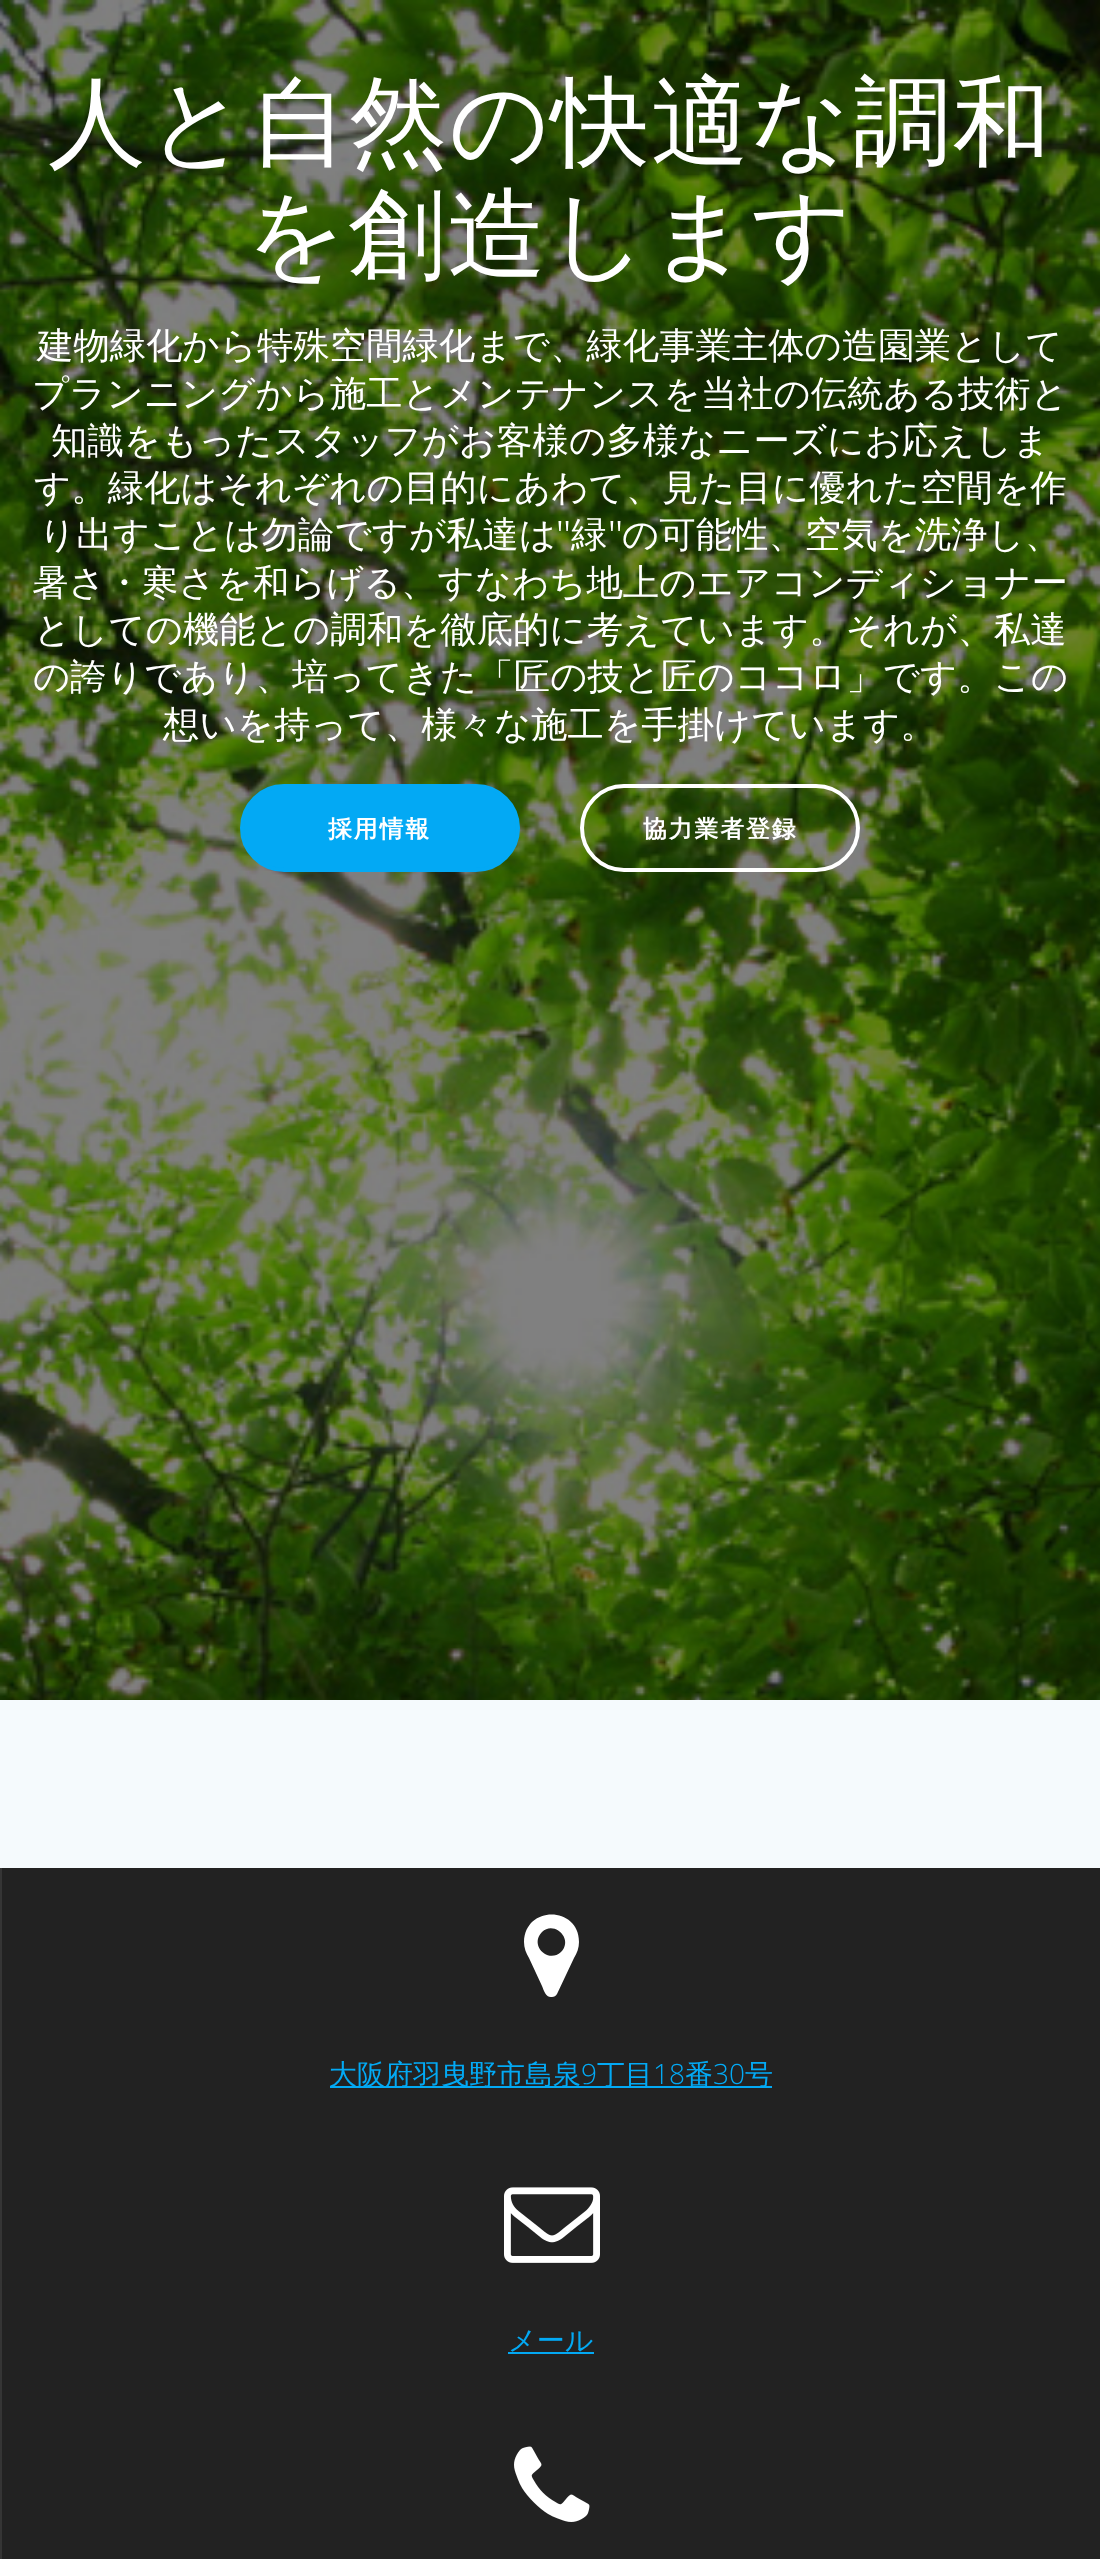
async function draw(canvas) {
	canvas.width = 1100;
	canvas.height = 2559;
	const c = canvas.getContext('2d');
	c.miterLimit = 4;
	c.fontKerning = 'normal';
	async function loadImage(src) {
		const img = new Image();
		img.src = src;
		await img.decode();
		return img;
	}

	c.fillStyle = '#fff';
	c.fillRect(0, 0, 1100, 2559);
	c.drawImage(await loadImage('img1.png'), 0, 0, 1100, 1700);
	c.letterSpacing = '1.75px';
	c.font = '500 98px WenQuanYi Zen Hei';
	c.fillText('人と自然の快適な調和', 48, 156);
	c.fillText('を創造します', 246, 268);
	c.letterSpacing = '0px';
	c.font = '500 36.4px WenQuanYi Zen Hei';
	for (const [text, x, y] of [
		['建物緑化から特殊空間緑化まで、緑化事業主体の造園業として', 37, 358],
		['プランニングから施工とメンテナンスを当社の伝統ある技術と', 32, 406],
		['知識をもったスタッフがお客様の多様なニーズにお応えしま', 51, 453],
		['す。緑化はそれぞれの目的にあわて、見た目に優れた空間を作', 34, 500],
		['り出すことは勿論ですが私達は', 39, 547],
	]) {
		c.fillText(text, x, y);
	}
	c.font = '300 36.4px Muli';
	c.fillText('"', 556, 547);
	c.font = '500 36.4px WenQuanYi Zen Hei';
	c.fillText('緑', 571, 547);
	c.font = '300 36.4px Muli';
	c.fillText('"', 608, 547);
	c.font = '500 36.4px WenQuanYi Zen Hei';
	for (const [text, x, y] of [
		['の可能性、空気を洗浄し、', 622, 547],
		['暑さ・寒さを和らげる、すなわち地上のエアコンディショナー', 32, 595],
		['としての機能との調和を徹底的に考えています。それが、私達', 34, 642],
		['の誇りであり、培ってきた「匠の技と匠のココロ」です。この', 33, 689],
		['想いを持って、様々な施工を手掛けています。', 163, 737],
	]) {
		c.fillText(text, x, y);
	}
	c.fillStyle = '#03a9f4';
	c.beginPath();
	c.roundRect(242, 786, 276, 84, 42);
	c.fill();
	c.strokeStyle = '#03a9f4';
	c.lineWidth = 4;
	c.stroke();
	c.letterSpacing = '2px';
	c.font = 'bold 23.75px WenQuanYi Zen Hei';
	c.fillStyle = '#fff';
	c.fillText('採用情報', 328, 837);
	c.beginPath();
	c.roundRect(582, 786, 276, 84, 42);
	c.strokeStyle = '#fff';
	c.stroke();
	c.fillText('協力業者登録', 643, 837);
	for (const [x, y, w, h, color] of [
		[0, 1700, 1100, 168, '#f5fafd'],
		[2, 1868, 1098, 691, '#222'],
		[0, 1868, 2, 691, '#353535'],
	]) {
		c.fillStyle = color;
		c.fillRect(x, y, w, h);
	}
	c.fillStyle = '#fff';
	c.beginPath();
	c.moveTo(561, 1952);
	c.bezierCurveTo(574, 1939, 554, 1920, 542, 1932);
	c.bezierCurveTo(529, 1945, 548, 1964, 561, 1952);
	c.closePath();
	c.moveTo(579, 1942);
	c.bezierCurveTo(579, 1948, 577, 1953, 574, 1958);
	c.lineTo(557, 1994);
	c.bezierCurveTo(556, 1996, 554, 1997, 552, 1997);
	c.bezierCurveTo(546, 1998, 544, 1991, 542, 1986);
	c.lineTo(529, 1958);
	c.bezierCurveTo(526, 1953, 524, 1948, 524, 1942);
	c.bezierCurveTo(525, 1905, 579, 1906, 579, 1942);
	c.closePath();
	c.fill();
	c.fillStyle = '#03a9f4';
	c.fillRect(330, 2086, 442, 2);
	c.letterSpacing = '0px';
	c.font = '500 28px WenQuanYi Zen Hei';
	c.fillText('大阪府羽曳野市島泉', 329, 2084);
	c.font = '300 28px Open Sans';
	c.fillText('9', 581, 2084);
	c.font = '500 28px WenQuanYi Zen Hei';
	c.fillText('丁目', 597, 2084);
	c.font = '300 28px Open Sans';
	c.fillText('18', 653, 2084);
	c.font = '500 28px WenQuanYi Zen Hei';
	c.fillText('番', 685, 2084);
	c.font = '300 28px Open Sans';
	c.fillText('30', 713, 2084);
	c.font = '500 28px WenQuanYi Zen Hei';
	c.fillText('号', 745, 2084);
	c.drawImage(await loadImage('img2.png'), 504, 2187, 96, 76);
	c.fillText('メール', 508, 2350);
	c.fillRect(508, 2352, 86, 2);
	c.drawImage(await loadImage('img3.png'), 514, 2446, 76, 76);
}

draw(document.querySelector('canvas'));
